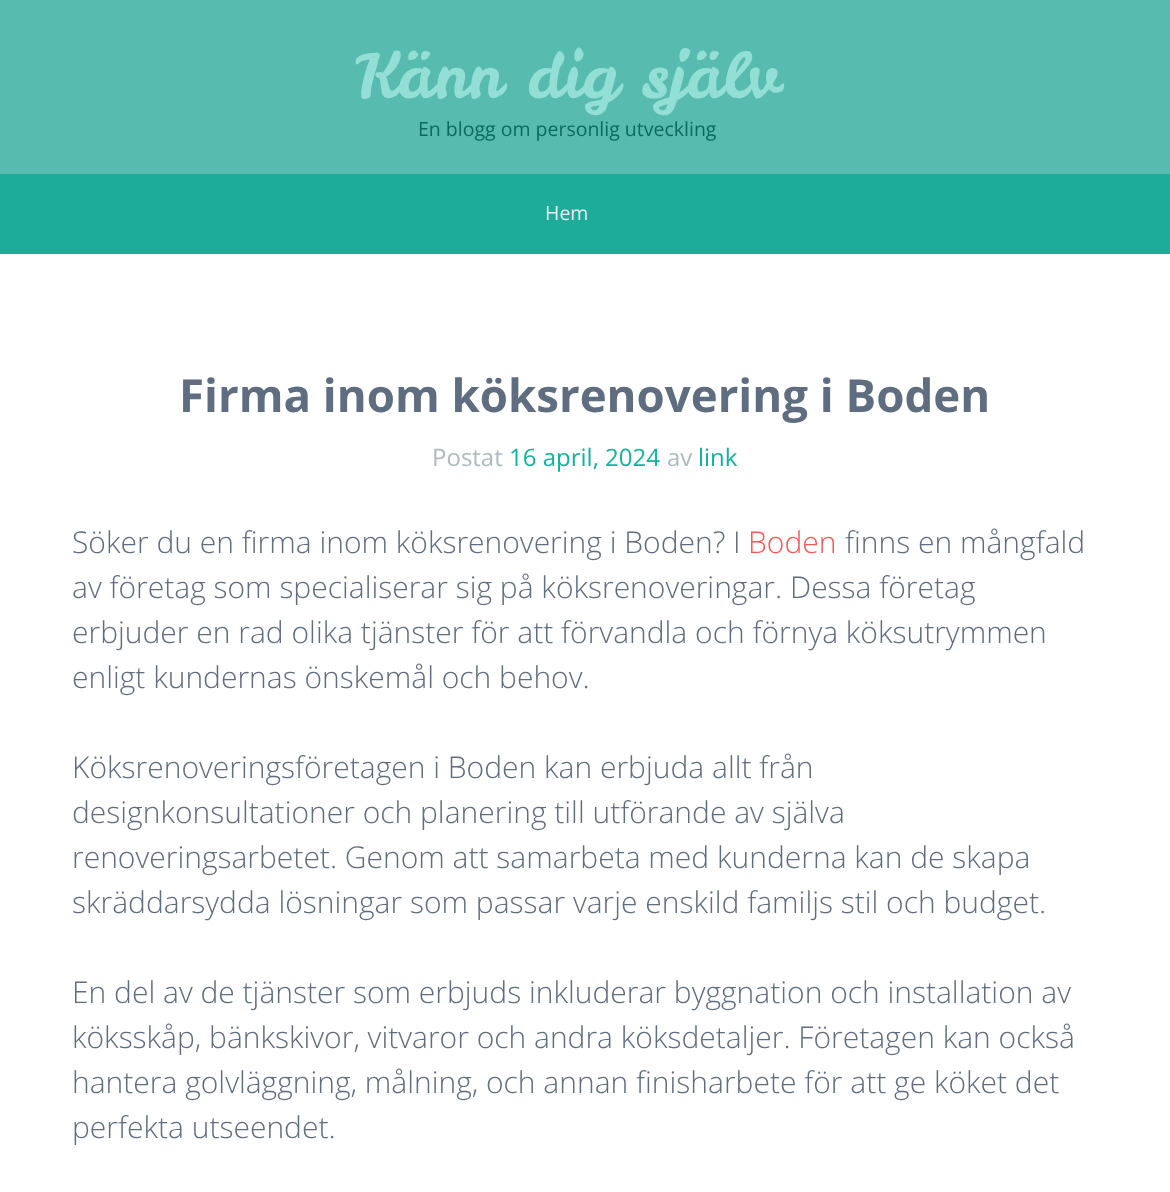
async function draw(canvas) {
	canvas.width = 1170;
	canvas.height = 1192;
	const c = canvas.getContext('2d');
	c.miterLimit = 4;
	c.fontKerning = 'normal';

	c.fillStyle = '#fff';
	c.fillRect(0, 0, 1170, 1192);
	c.fillStyle = '#57bcaf';
	c.fillRect(0, 0, 1170, 174);
	c.font = '63px Leckerli One';
	c.fillStyle = '#93dfd5';
	c.fillText('Känn dig själv', 355, 98);
	c.font = '19.5px Open Sans';
	c.fillStyle = '#0a6a5e';
	c.fillText('En blogg om personlig utveckling', 418, 136);
	c.fillStyle = '#1dac9a';
	c.fillRect(0, 174, 1170, 80);
	c.fillStyle = '#eaedf1';
	c.fillText('Hem', 545, 220);
	c.font = 'bold 45.6px Open Sans';
	c.fillStyle = '#5f6d80';
	c.fillText('Firma inom köksrenovering i Boden', 179, 412);
	c.font = '24px Open Sans';
	c.fillStyle = '#abbbc0';
	c.fillText('Postat', 432, 466);
	c.fillStyle = '#0fb39e';
	c.fillText('16 april, 2024', 509, 466);
	c.fillStyle = '#abbbc0';
	c.fillText('av', 667, 466);
	c.fillStyle = '#0fb39e';
	c.fillText('link', 698, 466);
	c.font = '300 30px Open Sans';
	c.fillStyle = '#5f6d80';
	c.fillText('Söker du en firma inom köksrenovering i Boden? I', 72, 553);
	c.fillStyle = '#f35955';
	c.fillText('Boden', 748, 553);
	c.fillStyle = '#5f6d80';
	for (const [text, x, y] of [
		['finns en mångfald', 845, 553],
		['av företag som specialiserar sig på köksrenoveringar. Dessa företag', 72, 598],
		['erbjuder en rad olika tjänster för att förvandla och förnya köksutrymmen', 72, 643],
		['enligt kundernas önskemål och behov.', 72, 688],
		['Köksrenoveringsföretagen i Boden kan erbjuda allt från', 72, 778],
		['designkonsultationer och planering till utförande av själva', 72, 823],
		['renoveringsarbetet. Genom att samarbeta med kunderna kan de skapa', 72, 868],
		['skräddarsydda lösningar som passar varje enskild familjs stil och budget.', 72, 913],
		['En del av de tjänster som erbjuds inkluderar byggnation och installation av', 72, 1003],
		['köksskåp, bänkskivor, vitvaror och andra köksdetaljer. Företagen kan också', 72, 1048],
		['hantera golvläggning, målning, och annan finisharbete för att ge köket det', 72, 1093],
		['perfekta utseendet.', 72, 1138],
	]) {
		c.fillText(text, x, y);
	}
}

draw(document.querySelector('canvas'));
